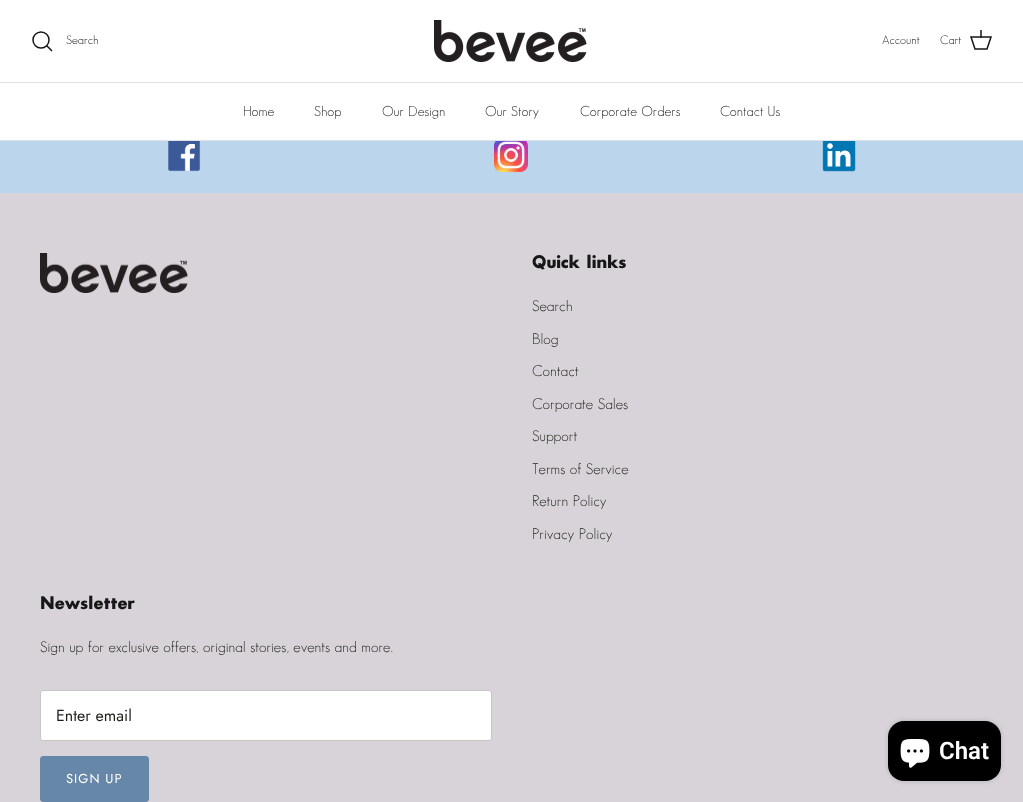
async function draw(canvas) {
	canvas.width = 1023;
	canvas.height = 802;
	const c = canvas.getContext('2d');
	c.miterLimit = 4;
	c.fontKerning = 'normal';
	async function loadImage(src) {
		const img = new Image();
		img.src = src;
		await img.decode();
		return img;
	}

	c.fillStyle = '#d7d3d9';
	c.fillRect(0, 0, 1023, 802);
	c.fillStyle = '#fff';
	c.fillRect(0, 0, 1023, 82);
	c.fillStyle = '#dfe3e8';
	c.fillRect(0, 82, 1023, 1);
	c.beginPath();
	c.arc(41, 40, 8, 0, 2 * Math.PI);
	c.strokeStyle = '#171717';
	c.lineWidth = 1.5;
	c.stroke();
	c.font = '500 12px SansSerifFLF';
	c.fillStyle = '#171717';
	c.fillText('Search', 66, 44);
	c.beginPath();
	c.moveTo(47, 46);
	c.lineTo(51.5, 50.5);
	c.lineCap = 'square';
	c.stroke();
	c.drawImage(await loadImage('img1.png'), 434, 20, 153, 42);
	c.fillText('Account', 882, 44);
	c.fillText('Cart', 940, 44);
	c.beginPath();
	c.moveTo(971, 37);
	c.lineTo(991, 37);
	c.lineTo(987, 49);
	c.lineTo(975, 49);
	c.closePath();
	c.lineCap = 'butt';
	c.stroke();
	for (const [x, y, w, h, color] of [
		[980, 30, 2, 8, '#171717bf'],
		[0, 140, 1023, 1, '#dfe3e8'],
		[0, 83, 1023, 57, '#fff'],
	]) {
		c.fillStyle = color;
		c.fillRect(x, y, w, h);
	}
	c.font = '500 14px SansSerifFLF';
	c.fillStyle = '#1e2019';
	for (const [text, x, y] of [
		['Home', 243, 116],
		['Shop', 314, 116],
		['Our Design', 382, 116],
		['Our Story', 485, 116],
		['Corporate Orders', 580, 116],
		['Contact Us', 720, 116],
	]) {
		c.fillText(text, x, y);
	}
	c.fillStyle = '#bbd5ec';
	c.fillRect(0, 141, 1023, 51);
	c.drawImage(await loadImage('img2.png'), 168, 141, 33, 31);
	c.drawImage(await loadImage('img3.png'), 494, 141, 34, 31);
	c.drawImage(await loadImage('img4.png'), 822, 141, 34, 31);
	c.fillStyle = '#bbd3ec';
	c.fillRect(0, 192, 1023, 1);
	c.drawImage(await loadImage('img5.png'), 40, 253, 148, 40);
	c.font = '500 18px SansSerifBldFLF';
	c.fillStyle = '#171717';
	c.fillText('Quick links', 532, 268);
	c.font = '500 15px SansSerifFLF';
	c.fillStyle = '#1e2019';
	for (const [text, x, y] of [
		['Search', 532, 311],
		['Blog', 532, 344],
		['Contact', 532, 376],
		['Corporate Sales', 532, 409],
		['Support', 532, 441],
		['Terms of Service', 532, 474],
		['Return Policy', 532, 506],
		['Privacy Policy', 532, 539],
	]) {
		c.fillText(text, x, y);
	}
	c.font = '500 18px SansSerifBldFLF';
	c.fillStyle = '#171717';
	c.fillText('Newsletter', 40, 609);
	c.font = '500 15px SansSerifFLF';
	c.fillStyle = '#1e2019';
	c.fillText('Sign up for exclusive offers, original stories, events and more.', 40, 652);
	c.fillStyle = '#fff';
	c.beginPath();
	c.roundRect(40.5, 690.5, 451, 50, 2.5);
	c.fill();
	c.strokeStyle = '#c7c7c6';
	c.lineWidth = 1;
	c.stroke();
	c.font = '16px Jost';
	c.fillStyle = '#1e2019';
	c.fillText('Enter email', 56, 721);
	c.fillStyle = '#6787a8';
	c.beginPath();
	c.roundRect(40.5, 756.5, 108, 45, 2.5);
	c.fill();
	c.strokeStyle = '#6787a8';
	c.stroke();
	c.letterSpacing = '1px';
	c.font = '13px Jost';
	c.fillStyle = '#fff';
	c.fillText('SIGN UP', 66, 783);
	c.fillStyle = '#00000026';
	c.filter = 'blur(2.5px)';
	c.beginPath();
	c.roundRect(888, 721, 113, 60, 16);
	c.fill();
	c.filter = 'none';
	c.fillStyle = '#000';
	c.beginPath();
	c.roundRect(888, 721, 113, 60, 16);
	c.fill();
	c.drawImage(await loadImage('img6.png'), 900, 739, 30, 29);
	c.letterSpacing = '0px';
	c.font = '600 24px Roboto';
	c.fillStyle = '#fff';
	c.fillText('Chat', 939, 759);
}

draw(document.querySelector('canvas'));
